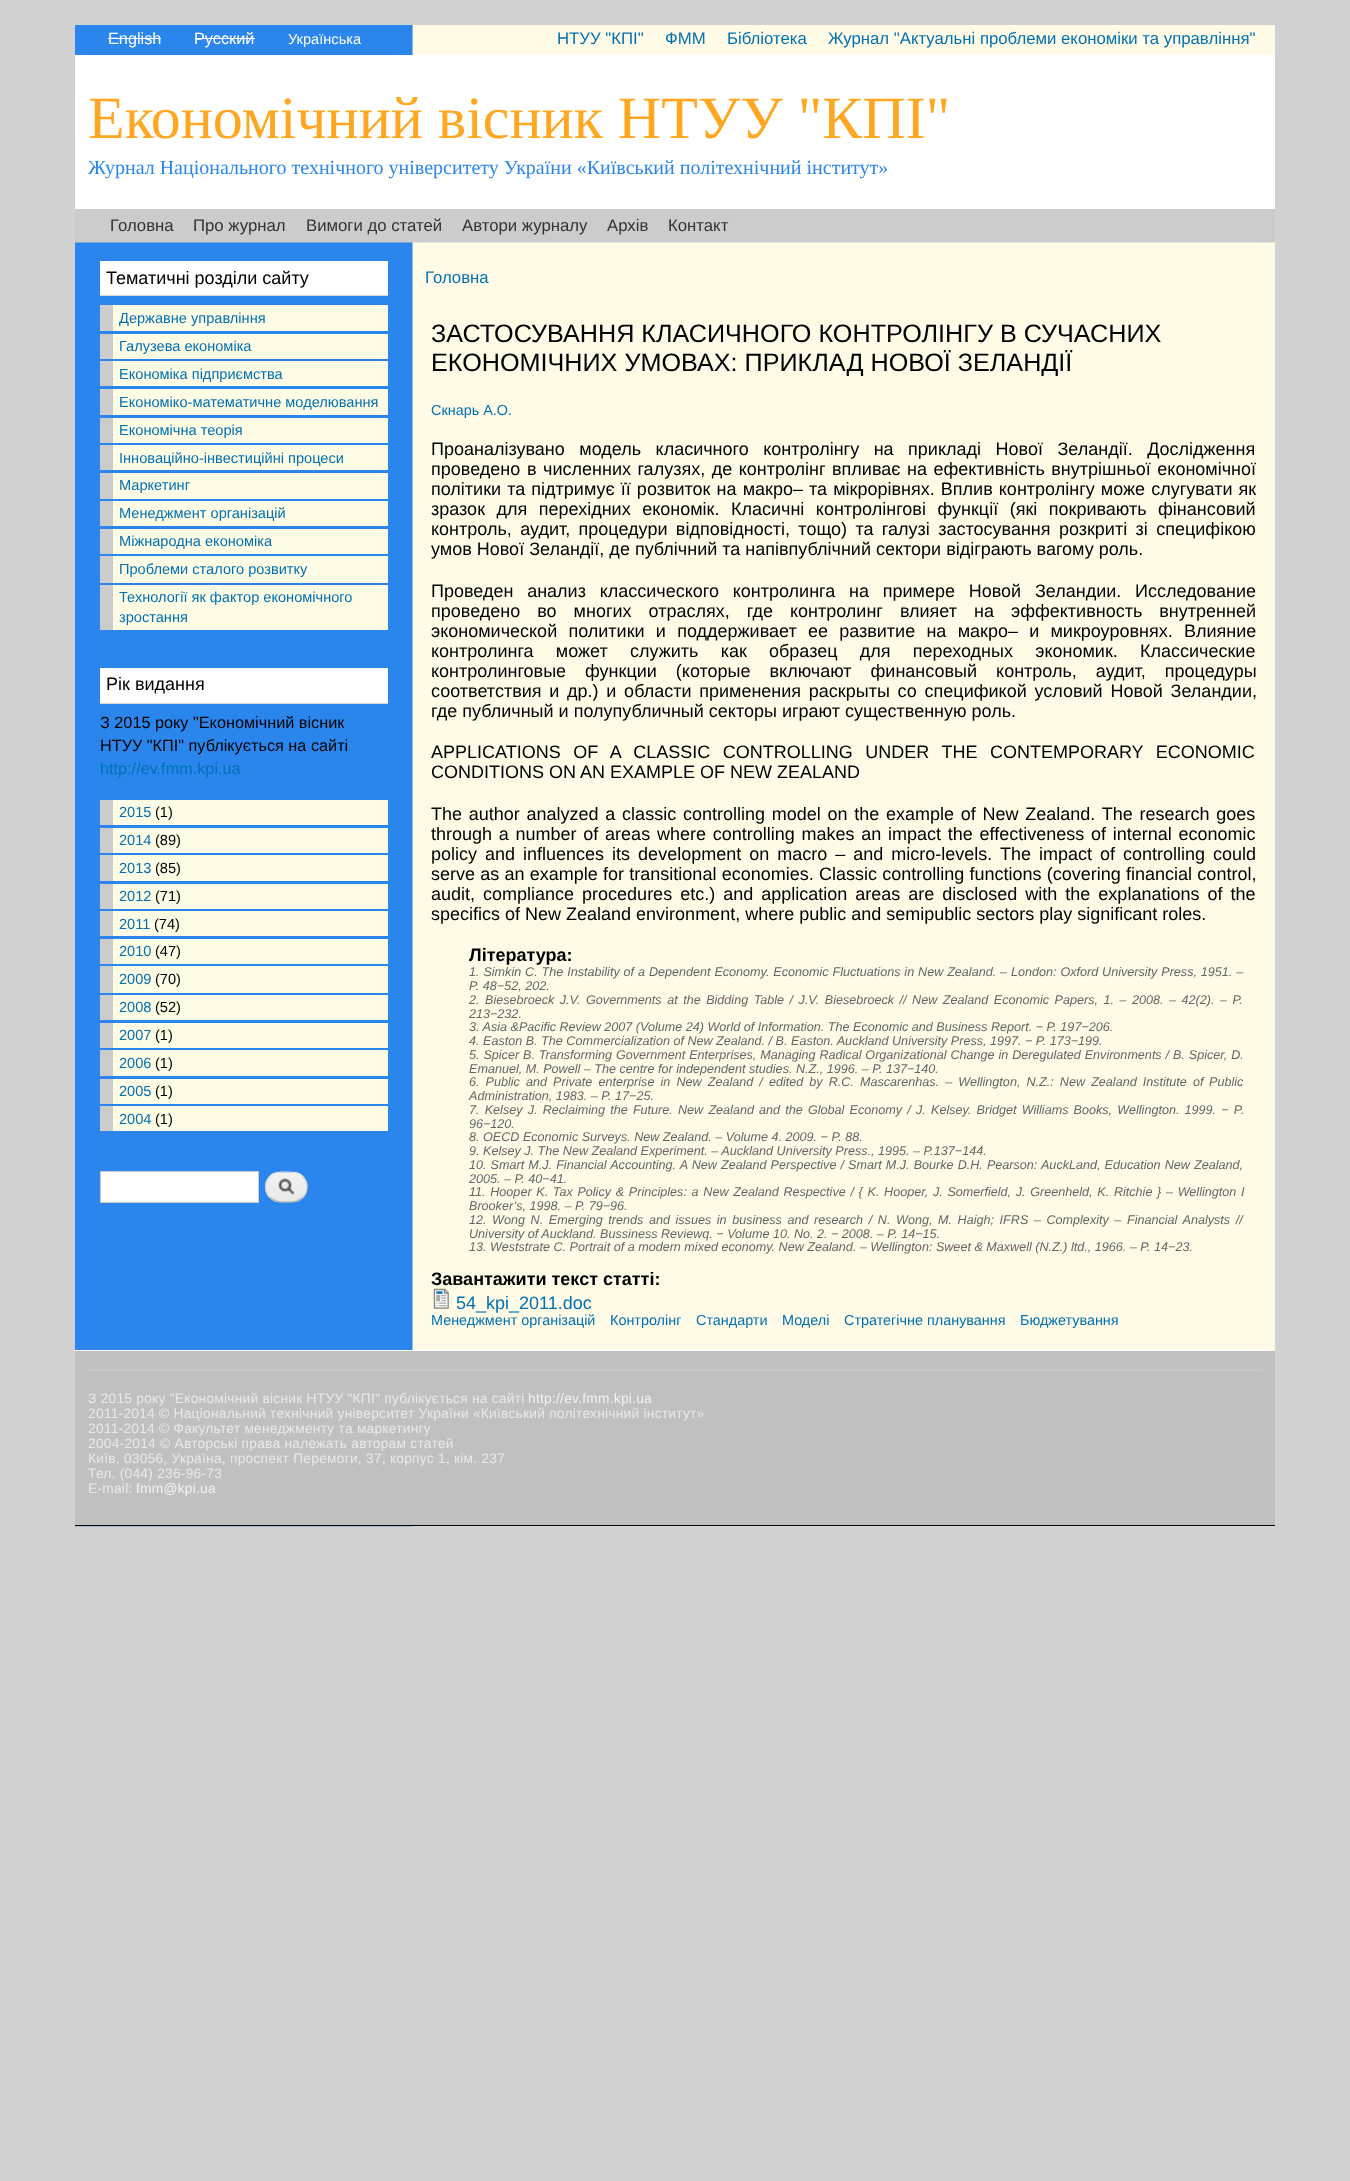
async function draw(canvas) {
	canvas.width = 1350;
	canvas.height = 2181;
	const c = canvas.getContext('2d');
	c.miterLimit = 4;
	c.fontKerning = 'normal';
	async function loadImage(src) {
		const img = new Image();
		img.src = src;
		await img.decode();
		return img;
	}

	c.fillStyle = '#d1d1d1';
	c.fillRect(0, 0, 1350, 2181);
	c.drawImage(await loadImage('img1.png'), 75, 1526, 1200, 1);
	c.fillStyle = '#fff';
	c.fillRect(75, 55, 1200, 154);
	c.drawImage(await loadImage('img2.png'), 75, 25, 1200, 30);
	c.font = '16.25px Liberation Sans';
	c.fillText('English', 108, 44);
	c.fillRect(108, 38, 53, 1);
	c.fillText('Русский', 194, 44);
	c.fillRect(195, 38, 60, 1);
	c.font = '14.6px Liberation Sans';
	c.fillText('Українська', 288, 44);
	c.font = '16.75px Liberation Sans';
	c.fillStyle = '#0071b3';
	for (const [text, x, y] of [
		['НТУУ "КПІ"', 557, 44],
		['ФММ', 665, 44],
		['Бібліотека', 727, 44],
		['Журнал "Актуальні проблеми економіки та управління"', 828, 44],
	]) {
		c.fillText(text, x, y);
	}
	c.font = '60px Liberation Serif';
	c.fillStyle = '#ffa720';
	c.fillText('Економічний вісник НТУУ "КПІ"', 88, 138);
	c.font = '20px Liberation Serif';
	c.fillStyle = '#2a86ed';
	c.fillText('Журнал Національного технічного університету України «Київський політехнічний інститут»', 88, 174);
	c.fillStyle = '#ccc';
	c.fillRect(75, 209, 1200, 34);
	c.font = '16.75px Liberation Sans';
	c.fillStyle = '#333';
	for (const [text, x, y] of [
		['Головна', 110, 231],
		['Про журнал', 193, 231],
		['Вимоги до статей', 306, 231],
		['Автори журналу', 462, 231],
		['Архів', 607, 231],
		['Контакт', 668, 231],
	]) {
		c.fillText(text, x, y);
	}
	c.drawImage(await loadImage('img3.png'), 75, 242, 1200, 1108);
	c.fillStyle = '#fff';
	c.fillRect(100, 261, 288, 34);
	c.fillStyle = '#d6d6d6';
	c.fillRect(100, 295, 288, 1);
	c.font = '18px Liberation Sans';
	c.fillStyle = '#000';
	c.fillText('Тематичні розділи сайту', 106, 284);
	c.fillStyle = '#fffce6';
	c.fillRect(113, 305, 275, 26);
	c.fillStyle = '#ccc';
	c.fillRect(100, 305, 13, 26);
	c.font = '14.6px Liberation Sans';
	c.fillStyle = '#0071b3';
	c.fillText('Державне управління', 119, 323);
	c.fillStyle = '#fffce6';
	c.fillRect(113, 334, 275, 25);
	c.fillStyle = '#ccc';
	c.fillRect(100, 334, 13, 25);
	c.fillStyle = '#0071b3';
	c.fillText('Галузева економіка', 119, 351);
	c.fillStyle = '#fffce6';
	c.fillRect(113, 361, 275, 25);
	c.fillStyle = '#ccc';
	c.fillRect(100, 361, 13, 25);
	c.fillStyle = '#0071b3';
	c.fillText('Економіка підприємства', 119, 379);
	c.fillStyle = '#fffce6';
	c.fillRect(113, 389, 275, 26);
	c.fillStyle = '#ccc';
	c.fillRect(100, 389, 13, 26);
	c.fillStyle = '#0071b3';
	c.fillText('Економіко-математичне моделювання', 119, 407);
	c.fillStyle = '#fffce6';
	c.fillRect(113, 418, 275, 25);
	c.fillStyle = '#ccc';
	c.fillRect(100, 418, 13, 25);
	c.fillStyle = '#0071b3';
	c.fillText('Економічна теорія', 119, 435);
	c.fillStyle = '#fffce6';
	c.fillRect(113, 445, 275, 25);
	c.fillStyle = '#ccc';
	c.fillRect(100, 445, 13, 25);
	c.fillStyle = '#0071b3';
	c.fillText('Інноваційно-інвестиційні процеси', 119, 463);
	c.fillStyle = '#fffce6';
	c.fillRect(113, 473, 275, 26);
	c.fillStyle = '#ccc';
	c.fillRect(100, 473, 13, 26);
	c.fillStyle = '#0071b3';
	c.fillText('Маркетинг', 119, 490);
	c.fillStyle = '#fffce6';
	c.fillRect(113, 501, 275, 25);
	c.fillStyle = '#ccc';
	c.fillRect(100, 501, 13, 25);
	c.fillStyle = '#0071b3';
	c.fillText('Менеджмент організацій', 119, 518);
	c.fillStyle = '#fffce6';
	c.fillRect(113, 529, 275, 25);
	c.fillStyle = '#ccc';
	c.fillRect(100, 529, 13, 25);
	c.fillStyle = '#0071b3';
	c.fillText('Міжнародна економіка', 119, 546);
	c.fillStyle = '#fffce6';
	c.fillRect(113, 556, 275, 27);
	c.fillStyle = '#ccc';
	c.fillRect(100, 556, 13, 27);
	c.fillStyle = '#0071b3';
	c.fillText('Проблеми сталого розвитку', 119, 574);
	c.fillStyle = '#fffce6';
	c.fillRect(113, 585, 275, 45);
	c.fillStyle = '#ccc';
	c.fillRect(100, 585, 13, 45);
	c.fillStyle = '#0071b3';
	c.fillText('Технології як фактор економічного', 119, 602);
	c.fillText('зростання', 119, 622);
	c.fillStyle = '#fff';
	c.fillRect(100, 668, 288, 35);
	c.fillStyle = '#d6d6d6';
	c.fillRect(100, 703, 288, 1);
	c.font = '18px Liberation Sans';
	c.fillStyle = '#000';
	c.fillText('Рік видання', 106, 690);
	c.font = '16.25px Liberation Sans';
	c.fillText('З 2015 року "Економічний вісник', 100, 728);
	c.fillText('НТУУ "КПІ" публікується на сайті', 100, 751);
	c.fillStyle = '#0071b3';
	c.fillText('http://ev.fmm.kpi.ua', 100, 774);
	c.fillStyle = '#fffce6';
	c.fillRect(113, 800, 275, 25);
	c.fillStyle = '#ccc';
	c.fillRect(100, 800, 13, 25);
	c.font = '14.6px Liberation Sans';
	c.fillStyle = '#0071b3';
	c.fillText('2015', 119, 817);
	c.fillStyle = '#000';
	c.fillText('(1)', 155, 817);
	c.fillStyle = '#fffce6';
	c.fillRect(113, 828, 275, 25);
	c.fillStyle = '#ccc';
	c.fillRect(100, 828, 13, 25);
	c.fillStyle = '#0071b3';
	c.fillText('2014', 119, 845);
	c.fillStyle = '#000';
	c.fillText('(89)', 155, 845);
	c.fillStyle = '#fffce6';
	c.fillRect(113, 855, 275, 26);
	c.fillStyle = '#ccc';
	c.fillRect(100, 855, 13, 26);
	c.fillStyle = '#0071b3';
	c.fillText('2013', 119, 873);
	c.fillStyle = '#000';
	c.fillText('(85)', 155, 873);
	c.fillStyle = '#fffce6';
	c.fillRect(113, 884, 275, 25);
	c.fillStyle = '#ccc';
	c.fillRect(100, 884, 13, 25);
	c.fillStyle = '#0071b3';
	c.fillText('2012', 119, 901);
	c.fillStyle = '#000';
	c.fillText('(71)', 155, 901);
	c.fillStyle = '#fffce6';
	c.fillRect(113, 911, 275, 25);
	c.fillStyle = '#ccc';
	c.fillRect(100, 911, 13, 25);
	c.fillStyle = '#0071b3';
	c.fillText('2011', 119, 929);
	c.fillStyle = '#000';
	c.fillText('(74)', 154, 929);
	c.fillStyle = '#fffce6';
	c.fillRect(113, 939, 275, 25);
	c.fillStyle = '#ccc';
	c.fillRect(100, 939, 13, 25);
	c.fillStyle = '#0071b3';
	c.fillText('2010', 119, 956);
	c.fillStyle = '#000';
	c.fillText('(47)', 155, 956);
	c.fillStyle = '#fffce6';
	c.fillRect(113, 966, 275, 27);
	c.fillStyle = '#ccc';
	c.fillRect(100, 966, 13, 27);
	c.fillStyle = '#0071b3';
	c.fillText('2009', 119, 984);
	c.fillStyle = '#000';
	c.fillText('(70)', 155, 984);
	c.fillStyle = '#fffce6';
	c.fillRect(113, 995, 275, 25);
	c.fillStyle = '#ccc';
	c.fillRect(100, 995, 13, 25);
	c.fillStyle = '#0071b3';
	c.fillText('2008', 119, 1012);
	c.fillStyle = '#000';
	c.fillText('(52)', 155, 1012);
	c.fillStyle = '#fffce6';
	c.fillRect(113, 1023, 275, 25);
	c.fillStyle = '#ccc';
	c.fillRect(100, 1023, 13, 25);
	c.fillStyle = '#0071b3';
	c.fillText('2007', 119, 1040);
	c.fillStyle = '#000';
	c.fillText('(1)', 155, 1040);
	c.fillStyle = '#fffce6';
	c.fillRect(113, 1050, 275, 26);
	c.fillStyle = '#ccc';
	c.fillRect(100, 1050, 13, 26);
	c.fillStyle = '#0071b3';
	c.fillText('2006', 119, 1068);
	c.fillStyle = '#000';
	c.fillText('(1)', 155, 1068);
	c.fillStyle = '#fffce6';
	c.fillRect(113, 1079, 275, 25);
	c.fillStyle = '#ccc';
	c.fillRect(100, 1079, 13, 25);
	c.fillStyle = '#0071b3';
	c.fillText('2005', 119, 1096);
	c.fillStyle = '#000';
	c.fillText('(1)', 155, 1096);
	c.fillStyle = '#fffce6';
	c.fillRect(113, 1106, 275, 25);
	c.fillStyle = '#ccc';
	c.fillRect(100, 1106, 13, 25);
	c.fillStyle = '#0071b3';
	c.fillText('2004', 119, 1124);
	c.fillStyle = '#000';
	c.fillText('(1)', 155, 1124);
	c.fillStyle = '#fff';
	c.beginPath();
	c.rect(100.5, 1171.5, 158, 31);
	c.fill();
	c.strokeStyle = '#ccc';
	c.stroke();
	c.drawImage(await loadImage('img4.png'), 265, 1172, 43, 31);
	c.beginPath();
	c.moveTo(270, 1176.5);
	c.bezierCurveTo(274.5, 1171.5, 280, 1172, 286, 1172);
	c.bezierCurveTo(292.5, 1172, 298, 1171.5, 302.5, 1176.5);
	c.strokeStyle = '#e4e4e4';
	c.lineWidth = 1.2;
	c.stroke();
	c.beginPath();
	c.moveTo(302.5, 1176.5);
	c.bezierCurveTo(308.5, 1182, 308.5, 1191.5, 302.5, 1197.5);
	c.strokeStyle = '#d2d2d2';
	c.stroke();
	c.beginPath();
	c.moveTo(302.5, 1197.5);
	c.bezierCurveTo(298, 1202, 292.5, 1202, 286, 1202);
	c.bezierCurveTo(280, 1202, 274.5, 1202, 270, 1197.5);
	c.strokeStyle = '#b4b4b4';
	c.stroke();
	c.beginPath();
	c.moveTo(270, 1197.5);
	c.bezierCurveTo(264, 1191.5, 264, 1182, 270, 1176.5);
	c.strokeStyle = '#d2d2d2';
	c.stroke();
	c.font = '16.75px Liberation Sans';
	c.fillStyle = '#0071b3';
	c.fillText('Головна', 425, 283);
	c.font = '25.2px Liberation Sans';
	c.fillStyle = '#000';
	c.fillText('ЗАСТОСУВАННЯ КЛАСИЧНОГО КОНТРОЛІНГУ В СУЧАСНИХ', 431, 342);
	c.fillText('ЕКОНОМІЧНИХ УМОВАХ: ПРИКЛАД НОВОЇ ЗЕЛАНДІЇ', 431, 371);
	c.font = '14.4px Liberation Sans';
	c.fillStyle = '#0071b3';
	c.fillText('Скнарь А.О.', 431, 415);
	c.wordSpacing = '9.5px';
	c.font = '18px Liberation Sans';
	c.fillStyle = '#000';
	c.fillText('Проаналізувано модель класичного контролінгу на прикладі Нової Зеландії. Дослідження', 431, 455);
	c.wordSpacing = '0px';
	c.fillText('проведено', 431, 475);
	c.wordSpacing = '1.5px';
	c.fillText('в численних галузях, де контролінг впливає на ефективність внутрішньої економічної', 527, 475);
	c.wordSpacing = '1.1px';
	c.fillText('політики та підтримує її розвиток на макро– та мікрорівнях. Вплив контролінгу може слугувати як', 431, 495);
	c.wordSpacing = '6.5px';
	c.fillText('зразок для перехідних економік. Класичні контролінгові функції (які покривають фінансовий', 431, 515);
	c.wordSpacing = '3.4px';
	c.fillText('контроль, аудит, процедури відповідності, тощо) та галузі застосування розкриті зі специфікою', 431, 535);
	c.wordSpacing = '0px';
	c.fillText('умов Нової Зеландії, де публічний та напівпублічний сектори відіграють вагому роль.', 431, 555);
	c.wordSpacing = '8.75px';
	c.fillText('Проведен анализ классического контролинга на примере Новой Зеландии. Исследование', 431, 597);
	c.wordSpacing = '12px';
	c.fillText('проведено во многих отраслях, где контролинг влияет на эффективность внутренней', 431, 617);
	c.wordSpacing = '6.25px';
	c.fillText('экономической политики и поддерживает ее развитие на макро– и микроуровнях. Влияние', 431, 637);
	c.wordSpacing = '17.25px';
	c.fillText('контролинга может служить как образец для переходных экономик. Классические', 431, 657);
	c.wordSpacing = '0px';
	c.fillText('контролинговые', 431, 677);
	c.wordSpacing = '14px';
	c.fillText('функции (которые включают финансовый контроль, аудит, процедуры', 585, 677);
	c.wordSpacing = '2.75px';
	c.fillText('соответствия и др.) и области применения раскрыты со спецификой условий Новой Зеландии,', 431, 697);
	c.wordSpacing = '0px';
	c.fillText('где публичный и полупубличный секторы играют существенную роль.', 431, 717);
	c.wordSpacing = '7.5px';
	c.fillText('APPLICATIONS OF A CLASSIC CONTROLLING UNDER THE CONTEMPORARY ECONOMIC', 431, 758);
	c.wordSpacing = '0px';
	c.fillText('CONDITIONS ON AN EXAMPLE OF NEW ZEALAND', 431, 778);
	c.wordSpacing = '1.75px';
	c.fillText('The author analyzed a classic controlling model on the example of New Zealand. The research goes', 431, 820);
	c.fillText('through a number of areas where controlling makes an impact the effectiveness of internal economic', 431, 840);
	c.wordSpacing = '3px';
	c.fillText('policy and influences its development on macro – and micro-levels. The impact of controlling could', 431, 860);
	c.wordSpacing = '0.25px';
	c.fillText('serve as an example for transitional economies. Classic controlling functions (covering financial control,', 431, 880);
	c.wordSpacing = '3px';
	c.fillText('audit, compliance procedures etc.) and application areas are disclosed with the explanations of the', 431, 900);
	c.wordSpacing = '0px';
	c.fillText('specifics of New Zealand environment, where public and semipublic sectors play significant roles.', 431, 920);
	c.font = 'bold 18px Liberation Sans';
	c.fillText('Література:', 469, 961);
	c.wordSpacing = '0.4px';
	c.font = 'italic 12.6px Liberation Sans';
	c.fillStyle = '#666';
	c.fillText('1. Simkin C. The Instability of a Dependent Economy. Economic Fluctuations in New Zealand. – London: Oxford University Press, 1951. –', 469, 976);
	c.wordSpacing = '0px';
	c.fillText('P. 48−52, 202.', 469, 990);
	c.wordSpacing = '2px';
	c.fillText('2. Biesebroeck J.V. Governments at the Bidding Table / J.V. Biesebroeck // New Zealand Economic Papers, 1. – 2008. – 42(2). – P.', 469, 1004);
	c.wordSpacing = '0px';
	for (const [text, x, y] of [
		['213−232.', 469, 1018],
		['3. Asia &Pacific Review 2007 (Volume 24) World of Information. The Economic and Business Report. − P. 197−206.', 469, 1031],
		['4. Easton B. The Commercialization of New Zealand. / B. Easton. Auckland University Press, 1997. − P. 173−199.', 469, 1045],
	]) {
		c.fillText(text, x, y);
	}
	c.wordSpacing = '0.4px';
	c.fillText('5. Spicer B. Transforming Government Enterprises, Managing Radical Organizational Change in Deregulated Environments / B. Spicer, D.', 469, 1059);
	c.wordSpacing = '0px';
	c.fillText('Emanuel, M. Powell – The centre for independent studies. N.Z., 1996. – P. 137−140.', 469, 1073);
	c.wordSpacing = '2.6px';
	c.fillText('6. Public and Private enterprise in New Zealand / edited by R.C. Mascarenhas. – Wellington, N.Z.: New Zealand Institute of', 469, 1086);
	c.wordSpacing = '0px';
	c.fillText('Public', 1209, 1086);
	c.fillText('Administration, 1983. – P. 17−25.', 469, 1100);
	c.wordSpacing = '1.7px';
	c.fillText('7. Kelsey J. Reclaiming the Future. New Zealand and the Global Economy / J. Kelsey. Bridget Williams Books, Wellington. 1999. − P.', 469, 1114);
	c.wordSpacing = '0px';
	for (const [text, x, y] of [
		['96−120.', 469, 1128],
		['8. OECD Economic Surveys. New Zealand. – Volume 4. 2009. − P. 88.', 469, 1141],
		['9. Kelsey J. The New Zealand Experiment. – Auckland University Press., 1995. – P.137−144.', 469, 1155],
	]) {
		c.fillText(text, x, y);
	}
	c.wordSpacing = '0.6px';
	c.fillText('10. Smart M.J. Financial Accounting. A New Zealand Perspective / Smart M.J. Bourke D.H. Pearson: AuckLand, Education New Zealand,', 469, 1169);
	c.wordSpacing = '0px';
	c.fillText('2005. – P. 40−41.', 469, 1183);
	c.wordSpacing = '1.2px';
	c.fillText('11. Hooper K. Tax Policy & Principles: a New Zealand Respective / { K. Hooper, J. Somerfield, J. Greenheld, K. Ritchie } – Wellington I', 469, 1196);
	c.wordSpacing = '0px';
	c.fillText('Brooker’s, 1998. – P. 79−96.', 469, 1210);
	c.wordSpacing = '2.1px';
	c.fillText('12. Wong N. Emerging trends and issues in business and research / N. Wong, M. Haigh; IFRS – Complexity – Financial Analysts //', 469, 1224);
	c.wordSpacing = '0px';
	c.fillText('University of Auckland. Bussiness Reviewq. − Volume 10. No. 2. − 2008. – P. 14−15.', 469, 1238);
	c.fillText('13. Weststrate C. Portrait of a modern mixed economy. New Zealand. – Wellington: Sweet & Maxwell (N.Z.) ltd., 1966. – P. 14−23.', 469, 1251);
	c.font = 'bold 18px Liberation Sans';
	c.fillStyle = '#000';
	c.fillText('Завантажити текст статті:', 431, 1285);
	c.drawImage(await loadImage('img5.png'), 433, 1288, 16, 21);
	c.font = '18px Liberation Sans';
	c.fillStyle = '#0071b3';
	c.fillText('54_kpi_2011.doc', 456, 1309);
	c.font = '14.4px Liberation Sans';
	for (const [text, x, y] of [
		['Менеджмент організацій', 431, 1325],
		['Контролінг', 610, 1325],
		['Стандарти', 696, 1325],
		['Моделі', 782, 1325],
		['Стратегічне планування', 844, 1325],
		['Бюджетування', 1020, 1325],
	]) {
		c.fillText(text, x, y);
	}
	for (const [x, y, w, h, color] of [
		[75, 1351, 1200, 174, '#c0c0c0'],
		[75, 1350, 1200, 1, '#fff'],
		[75, 1525, 1200, 1, '#000'],
		[88, 1370, 1175, 1, '#c9c9c9'],
	]) {
		c.fillStyle = color;
		c.fillRect(x, y, w, h);
	}
	c.letterSpacing = '0.25px';
	c.font = '13.75px Liberation Sans';
	c.fillStyle = '#e9e9e9';
	c.fillText('З 2015 року "Економічний вісник НТУУ "КПІ" публікується на сайті', 88, 1403);
	c.fillStyle = '#f2f2f2';
	c.fillText('http://ev.fmm.kpi.ua', 528, 1403);
	c.fillStyle = '#e9e9e9';
	for (const [text, x, y] of [
		['2011-2014 © Національний технічний університет України «Київський політехнічний інститут»', 88, 1418],
		['2011-2014 © Факультет менеджменту та маркетингу', 88, 1433],
		['2004-2014 © Авторські права належать авторам статей', 88, 1448],
		['Київ, 03056, Україна, проспект Перемоги, 37, корпус 1, кім. 237', 88, 1463],
		['Тел. (044) 236-96-73', 88, 1478],
		['Е-mail:', 88, 1493],
	]) {
		c.fillText(text, x, y);
	}
	c.fillStyle = '#f2f2f2';
	c.fillText('fmm@kpi.ua', 136, 1493);
}

draw(document.querySelector('canvas'));
